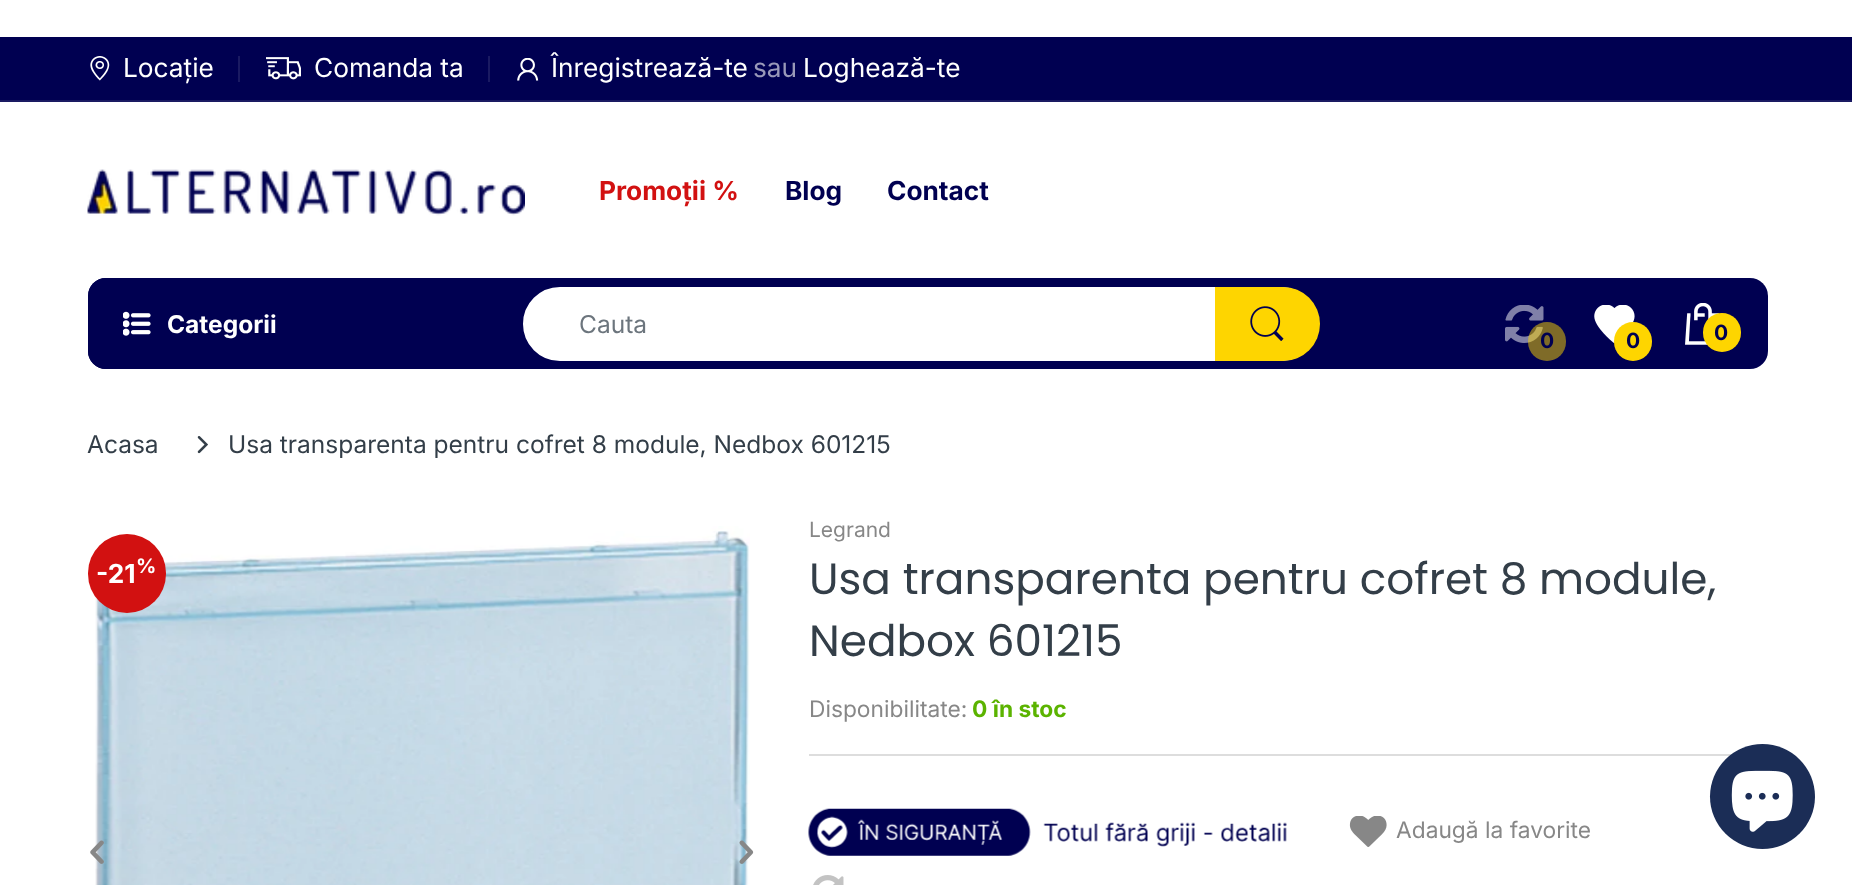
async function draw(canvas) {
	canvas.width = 1852;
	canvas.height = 885;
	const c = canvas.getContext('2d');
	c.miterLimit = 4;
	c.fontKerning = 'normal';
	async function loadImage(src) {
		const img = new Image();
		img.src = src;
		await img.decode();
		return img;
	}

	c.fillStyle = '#fff';
	c.fillRect(0, 0, 1852, 885);
	c.fillStyle = '#000051';
	c.fillRect(0, 37, 1852, 63);
	c.fillStyle = '#1a1a62';
	c.fillRect(0, 100, 1852, 2);
	c.drawImage(await loadImage('img1.png'), 90, 56, 20, 25);
	c.font = '26.25px Inter';
	c.fillStyle = '#fff';
	c.fillText('Locație', 123, 77);
	c.fillStyle = '#1a1a62';
	c.fillRect(238, 56, 2, 26);
	c.drawImage(await loadImage('img2.png'), 266, 57, 35, 23);
	c.fillStyle = '#fff';
	c.fillText('Comanda ta', 314, 77);
	c.fillStyle = '#1a1a62';
	c.fillRect(488, 56, 2, 26);
	c.drawImage(await loadImage('img3.png'), 517, 58, 22, 23);
	c.fillStyle = '#fff';
	c.fillText('Înregistrează-te', 551, 77);
	c.fillStyle = '#9999b9';
	c.fillText('sau', 753, 77);
	c.fillStyle = '#fff';
	c.fillText('Loghează-te', 803, 77);
	c.drawImage(await loadImage('img4.png'), 87, 169, 438, 47);
	c.font = 'bold 26.25px Inter';
	c.fillStyle = '#d21111';
	c.fillText('Promoții %', 599, 200);
	c.fillStyle = '#000051';
	c.fillText('Blog', 785, 200);
	c.fillText('Contact', 887, 200);
	c.beginPath();
	c.roundRect(88, 278, 1680, 91, 18);
	c.fill();
	c.beginPath();
	c.roundRect(88, 278, 383, 91, [18, 0, 0, 18]);
	c.fill();
	c.drawImage(await loadImage('img5.png'), 123, 311, 28, 25);
	c.font = 'bold 24.5px Inter';
	c.fillStyle = '#fff';
	c.fillText('Categorii', 167, 333);
	c.beginPath();
	c.roundRect(525, 289, 791, 70, 35);
	c.fill();
	c.strokeStyle = '#fff';
	c.lineWidth = 4;
	c.stroke();
	c.font = '24.5px Inter';
	c.fillStyle = '#6c757d';
	c.fillText('Cauta', 579, 333);
	c.fillStyle = '#fed500';
	c.beginPath();
	c.roundRect(1215, 287, 105, 74, [0, 37, 37, 0]);
	c.fill();
	c.drawImage(await loadImage('img6.png'), 1250, 306, 34, 35);
	c.drawImage(await loadImage('img7.png'), 1505, 305, 39, 38);
	c.fillStyle = '#fed50080';
	c.beginPath();
	c.roundRect(1528, 322, 38, 39, 19);
	c.fill();
	c.font = 'bold 21px Inter';
	c.fillStyle = '#000051';
	c.fillText('0', 1540, 348);
	c.drawImage(await loadImage('img8.png'), 1594, 305, 41, 38);
	c.fillStyle = '#fed500';
	c.beginPath();
	c.roundRect(1614, 322, 38, 39, 19);
	c.fill();
	c.fillStyle = '#000051';
	c.fillText('0', 1626, 348);
	c.drawImage(await loadImage('img9.png'), 1685, 303, 34, 42);
	c.fillStyle = '#fed500';
	c.beginPath();
	c.roundRect(1703, 313, 38, 39, 19);
	c.fill();
	c.fillStyle = '#000051';
	c.fillText('0', 1714, 340);
	c.font = '24.5px Inter';
	c.fillStyle = '#333e48';
	c.fillText('Acasa', 87, 453);
	c.drawImage(await loadImage('img10.png'), 197, 436, 11, 18);
	c.fillText('Usa transparenta pentru cofret 8 module, Nedbox 601215', 228, 453);
	c.drawImage(await loadImage('img11.png'), 95, 526, 655, 359);
	c.fillStyle = '#d21111';
	c.beginPath();
	c.roundRect(88, 534, 78, 79, 39);
	c.fill();
	c.font = 'bold 26.25px Inter';
	c.fillStyle = '#fff';
	c.fillText('-21', 96, 583);
	c.font = 'bold 20px Inter';
	c.fillText('%', 136, 573);
	c.drawImage(await loadImage('img12.png'), 90, 840, 14, 24);
	c.drawImage(await loadImage('img13.png'), 739, 840, 15, 24);
	c.font = '21px Inter';
	c.fillStyle = '#878787';
	c.fillText('Legrand', 809, 537);
	c.font = '43.75px Poppins';
	c.fillStyle = '#333e48';
	c.fillText('Usa transparenta pentru cofret 8 module,', 809, 594);
	c.fillText('Nedbox 601215', 809, 656);
	c.fillStyle = '#ddd';
	c.fillRect(809, 754, 923, 2);
	c.font = '22.75px Inter';
	c.fillStyle = '#878787';
	c.fillText('Disponibilitate:', 809, 717);
	c.font = 'bold 22.75px Inter';
	c.fillStyle = '#5bb300';
	c.fillText('0 în stoc', 972, 717);
	c.drawImage(await loadImage('img14.png'), 808, 808, 479, 48);
	c.drawImage(await loadImage('img15.png'), 1349, 816, 38, 31);
	c.font = '22.75px Inter';
	c.fillStyle = '#878787';
	c.fillText('Adaugă la favorite', 1396, 838);
	c.drawImage(await loadImage('img16.png'), 813, 875, 31, 10);
	c.fillStyle = '#1b2d56';
	c.beginPath();
	c.arc(1762.5, 796.5, 52.5, 0, 2 * Math.PI);
	c.fill();
	c.drawImage(await loadImage('img17.png'), 1731, 770, 62, 62);
}

draw(document.querySelector('canvas'));
